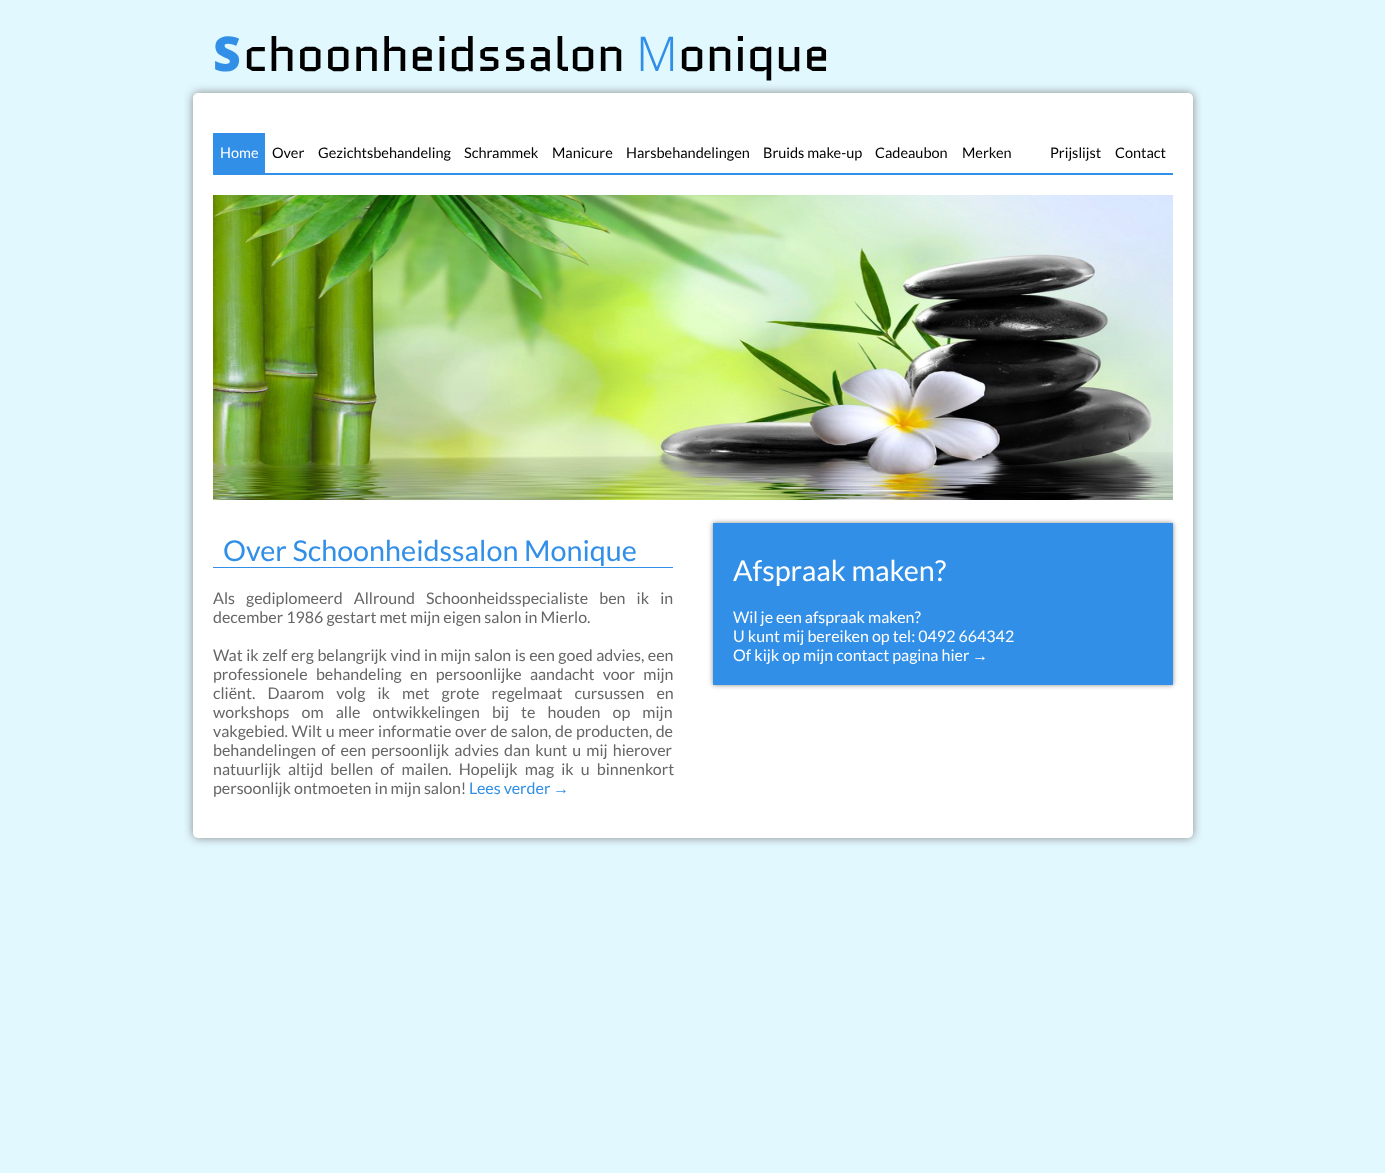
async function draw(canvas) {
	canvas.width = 1385;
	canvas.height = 1173;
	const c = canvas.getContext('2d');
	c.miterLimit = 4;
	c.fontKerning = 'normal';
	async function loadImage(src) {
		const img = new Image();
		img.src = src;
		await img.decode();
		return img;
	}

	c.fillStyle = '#e1f8ff';
	c.fillRect(0, 0, 1385, 1173);
	c.font = '900 48px Noto Sans';
	c.fillStyle = '#318fe7';
	c.fillText('S', 213, 71);
	c.font = '48px Quantico';
	c.fillStyle = '#000';
	c.fillText('choonheidssalon', 243, 71);
	c.font = '300 48px Noto Sans';
	c.fillStyle = '#318fe7';
	c.fillText('M', 636, 71);
	c.fillStyle = '#888';
	c.filter = 'blur(5px)';
	c.beginPath();
	c.roundRect(193, 93, 1000, 745, 5);
	c.fill();
	c.filter = 'none';
	c.font = '48px Quantico';
	c.fillStyle = '#000';
	c.fillText('onique', 678, 71);
	c.fillStyle = '#fff';
	c.beginPath();
	c.roundRect(193, 93, 1000, 745, 5);
	c.fill();
	c.fillStyle = '#318fe7';
	c.fillRect(213, 173, 960, 2);
	c.fillRect(213, 133, 52, 40);
	c.font = '14.5px Lato';
	c.fillStyle = '#fff';
	c.fillText('Home', 220, 158);
	c.fillStyle = '#000';
	for (const [text, x, y] of [
		['Over', 272, 158],
		['Gezichtsbehandeling', 318, 158],
		['Schrammek', 464, 158],
		['Manicure', 552, 158],
		['Harsbehandelingen', 626, 158],
		['Bruids make-up', 763, 158],
		['Cadeaubon', 875, 158],
		['Merken', 962, 158],
		['Prijslijst', 1050, 158],
		['Contact', 1115, 158],
	]) {
		c.fillText(text, x, y);
	}
	c.drawImage(await loadImage('img1.png'), 213, 195, 960, 305);
	c.fillStyle = '#318fe7';
	c.fillRect(213, 567, 460, 1);
	c.font = '28.75px Lato';
	c.fillText('Over Schoonheidssalon Monique', 223, 561);
	c.wordSpacing = '8px';
	c.font = '16px Lato';
	c.fillStyle = '#666';
	c.fillText('Als gediplomeerd Allround Schoonheidsspecialiste ben ik in', 213, 604);
	c.wordSpacing = '0px';
	c.fillText('december 1986 gestart met mijn eigen salon in Mierlo.', 213, 623);
	c.wordSpacing = '0.4px';
	c.fillText('Wat ik zelf erg belangrijk vind in mijn salon is een goed advies, een', 213, 661);
	c.wordSpacing = '5.25px';
	c.fillText('professionele behandeling en persoonlijke aandacht voor mijn', 213, 680);
	c.wordSpacing = '9px';
	c.fillText('cliënt. Daarom volg ik met grote regelmaat cursussen en', 213, 699);
	c.fillText('workshops om alle ontwikkelingen bij te houden op mijn', 213, 718);
	c.wordSpacing = '0.5px';
	c.fillText('vakgebied. Wilt u meer informatie over de salon, de producten, de', 213, 737);
	c.wordSpacing = '2px';
	c.fillText('behandelingen of een persoonlijk advies dan kunt u mij hierover', 213, 756);
	c.wordSpacing = '4px';
	c.fillText('natuurlijk altijd bellen of mailen. Hopelijk mag ik u binnenkort', 213, 775);
	c.wordSpacing = '0px';
	c.fillText('persoonlijk ontmoeten in mijn salon!', 213, 794);
	c.fillStyle = '#318fe7';
	c.fillText('Lees verder', 469, 794);
	c.font = '16px Liberation Serif';
	c.fillText('→', 553, 794);
	c.fillStyle = '#888';
	c.filter = 'blur(2.5px)';
	c.beginPath();
	c.rect(713, 523, 460, 162);
	c.fill();
	c.filter = 'none';
	c.fillStyle = '#318fe7';
	c.fillRect(713, 523, 460, 162);
	c.font = '28.75px Lato';
	c.fillStyle = '#fff';
	c.fillText('Afspraak maken?', 733, 581);
	c.font = '16px Lato';
	for (const [text, x, y] of [
		['Wil je een afspraak maken?', 733, 623],
		['U kunt mij bereiken op tel: 0492 664342', 733, 642],
		['Of kijk op mijn contact pagina hier', 733, 661],
	]) {
		c.fillText(text, x, y);
	}
	c.font = '16px Liberation Serif';
	c.fillText('→', 972, 661);
}

draw(document.querySelector('canvas'));
